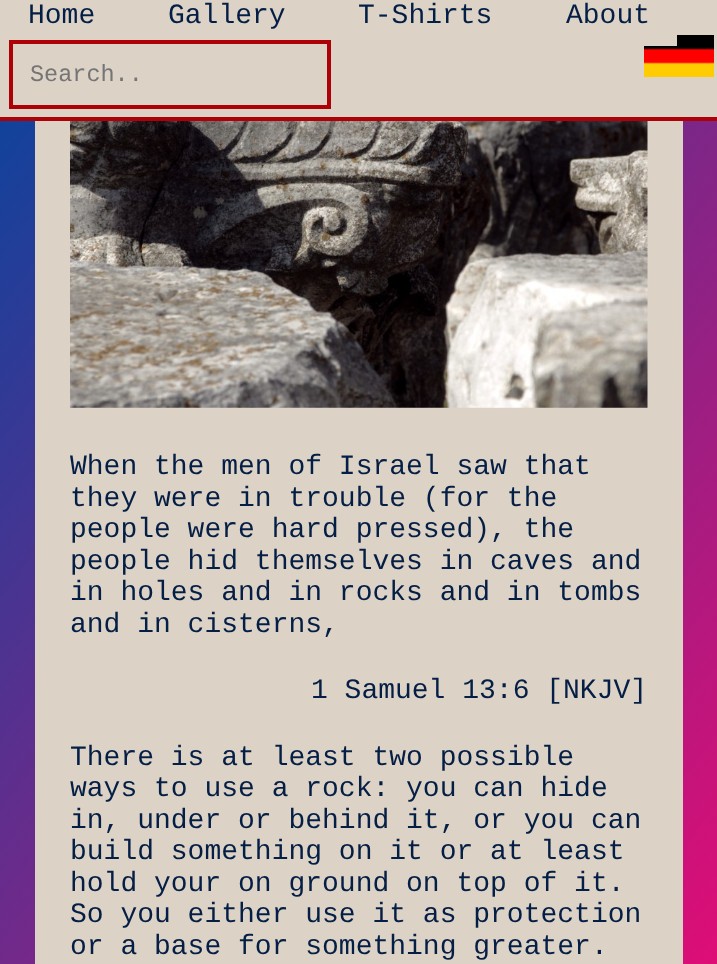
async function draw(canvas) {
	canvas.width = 717;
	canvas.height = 964;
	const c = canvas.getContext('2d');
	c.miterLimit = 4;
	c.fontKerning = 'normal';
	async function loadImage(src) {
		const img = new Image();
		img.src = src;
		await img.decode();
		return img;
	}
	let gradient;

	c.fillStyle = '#fff';
	c.fillRect(0, 0, 717, 964);
	gradient = c.createLinearGradient(-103, 138, 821, 826);
	gradient.addColorStop(0, '#03469e');
	gradient.addColorStop(1, '#df0d76');
	c.fillStyle = gradient;
	c.fillRect(0, 121, 717, 843);
	c.fillStyle = '#dcd2c5';
	c.fillRect(0, 0, 717, 117);
	c.fillStyle = '#ad0007';
	c.fillRect(0, 117, 717, 4);
	c.font = '28px Liberation Mono';
	c.fillStyle = '#041e45';
	for (const [text, x, y] of [
		['Home', 28, 23],
		['Gallery', 168, 23],
		['T-Shirts', 358, 23],
		['About', 566, 23],
	]) {
		c.fillText(text, x, y);
	}
	c.drawImage(await loadImage('img1.png'), 644, 35, 70, 42);
	c.fillStyle = '#dcd2c5';
	c.fillRect(644, 35, 33, 11);
	c.strokeStyle = '#ad0007';
	c.lineWidth = 4;
	c.strokeRect(11, 42, 318, 65);
	c.font = '23.5px Liberation Mono';
	c.fillStyle = '#757575';
	c.fillText('Search..', 30, 81);
	c.fillStyle = '#dcd2c5';
	c.fillRect(35, 121, 648, 843);
	c.drawImage(await loadImage('img2.png'), 70, 121, 578, 287);
	c.font = '28px Liberation Mono';
	c.fillStyle = '#041e45';
	for (const [text, x, y] of [
		['When the men of Israel saw that', 70, 474],
		['they were in trouble (for the', 70, 506],
		['people were hard pressed), the', 70, 537],
		['people hid themselves in caves and', 70, 569],
		['in holes and in rocks and in tombs', 70, 600],
		['and in cisterns,', 70, 632],
		['1 Samuel 13:6 [NKJV]', 311, 698],
		['There is at least two possible', 70, 765],
		['ways to use a rock: you can hide', 70, 796],
		['in, under or behind it, or you can', 70, 828],
		['build something on it or at least', 70, 859],
		['hold your on ground on top of it.', 70, 891],
		['So you either use it as protection', 70, 922],
		['or a base for something greater.', 70, 954],
	]) {
		c.fillText(text, x, y);
	}
}

draw(document.querySelector('canvas'));
